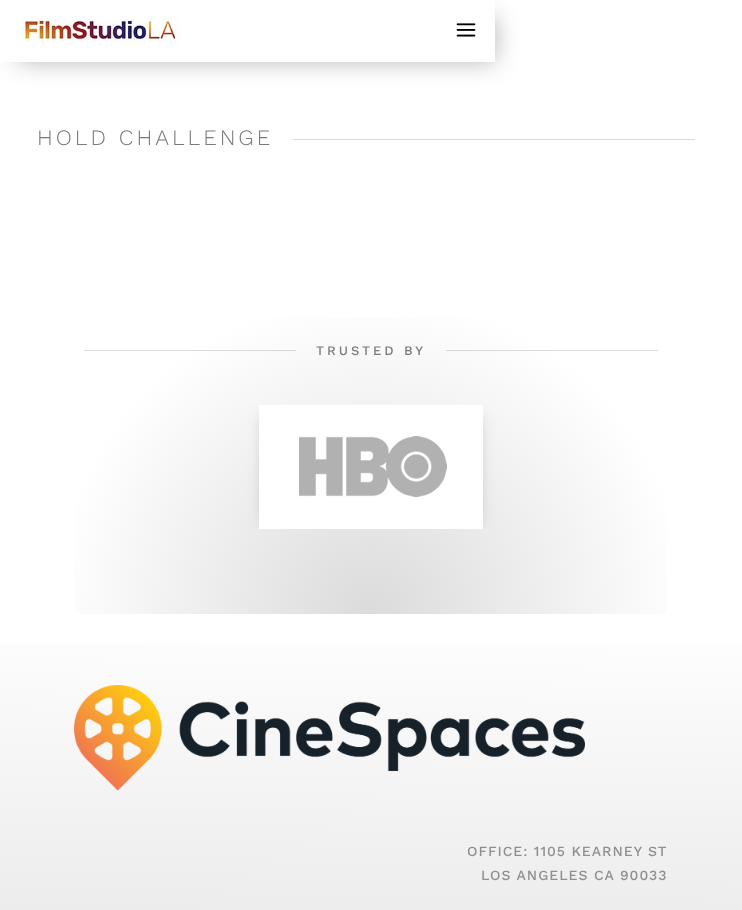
async function draw(canvas) {
	canvas.width = 742;
	canvas.height = 910;
	const c = canvas.getContext('2d');
	c.miterLimit = 4;
	c.fontKerning = 'normal';
	async function loadImage(src) {
		const img = new Image();
		img.src = src;
		await img.decode();
		return img;
	}
	let gradient;

	c.fillStyle = '#fff';
	c.fillRect(0, 0, 742, 910);
	c.fillStyle = '#0000004d';
	c.filter = 'blur(12px)';
	c.beginPath();
	c.rect(18, 17, 477, 44);
	c.fill();
	c.filter = 'none';
	c.fillStyle = '#fff';
	c.fillRect(0, 0, 495, 62);
	c.drawImage(await loadImage('img1.png'), 24, 15, 157, 32);
	c.drawImage(await loadImage('img2.png'), 456, 23, 20, 14);
	gradient = c.createRadialGradient(371, 614, 0, 371, 614, 665);
	gradient.addColorStop(0, '#dbdbdb');
	gradient.addColorStop(0.48, '#fff');
	c.fillStyle = gradient;
	c.fillRect(75, 317, 592, 297);
	gradient = c.createRadialGradient(371, 614, 0, 371, 614, 665);
	gradient.addColorStop(0, '#bcbcbc');
	gradient.addColorStop(0.48, '#dbdbdb');
	c.fillStyle = gradient;
	c.fillRect(84, 350, 212, 1);
	c.letterSpacing = '3px';
	c.font = '300 22px Work Sans';
	c.fillStyle = '#7a7a7a';
	c.fillText('HOLD CHALLENGE', 37, 145);
	c.fillStyle = '#dbdbdb';
	c.fillRect(293, 139, 402, 1);
	c.font = '500 13px Work Sans';
	c.fillStyle = '#7a7a7a';
	c.fillText('TRUSTED BY', 316, 355);
	c.fillStyle = '#00000024';
	c.fillRect(446, 350, 212, 1);
	c.save();
	c.beginPath();
	c.rect(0, 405, 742, 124);
	c.clip();
	c.fillStyle = '#0000004d';
	c.filter = 'blur(9px)';
	c.beginPath();
	c.rect(267, 415, 208, 108);
	c.fill();
	c.filter = 'none';
	c.restore();
	c.beginPath();
	c.moveTo(265, 411);
	c.lineTo(477, 411);
	c.lineTo(477, 523);
	c.lineTo(265, 523);
	c.closePath();
	c.strokeStyle = '#fff';
	c.lineWidth = 12;
	c.stroke();
	c.drawImage(await loadImage('img3.png'), 271, 417, 200, 100);
	gradient = c.createLinearGradient(380, 608, 362, 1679);
	gradient.addColorStop(0, '#fff');
	gradient.addColorStop(0.92, '#c3c3c3');
	c.fillStyle = gradient;
	c.fillRect(0, 643, 742, 267);
	c.drawImage(await loadImage('img4.png'), 74, 685, 511, 105);
	c.letterSpacing = '1px';
	c.font = '500 14px Work Sans';
	c.fillStyle = '#8f8f8f';
	c.fillText('OFFICE: 1105 KEARNEY ST', 467, 856);
	c.fillText('LOS ANGELES CA 90033', 481, 880);
}

draw(document.querySelector('canvas'));
